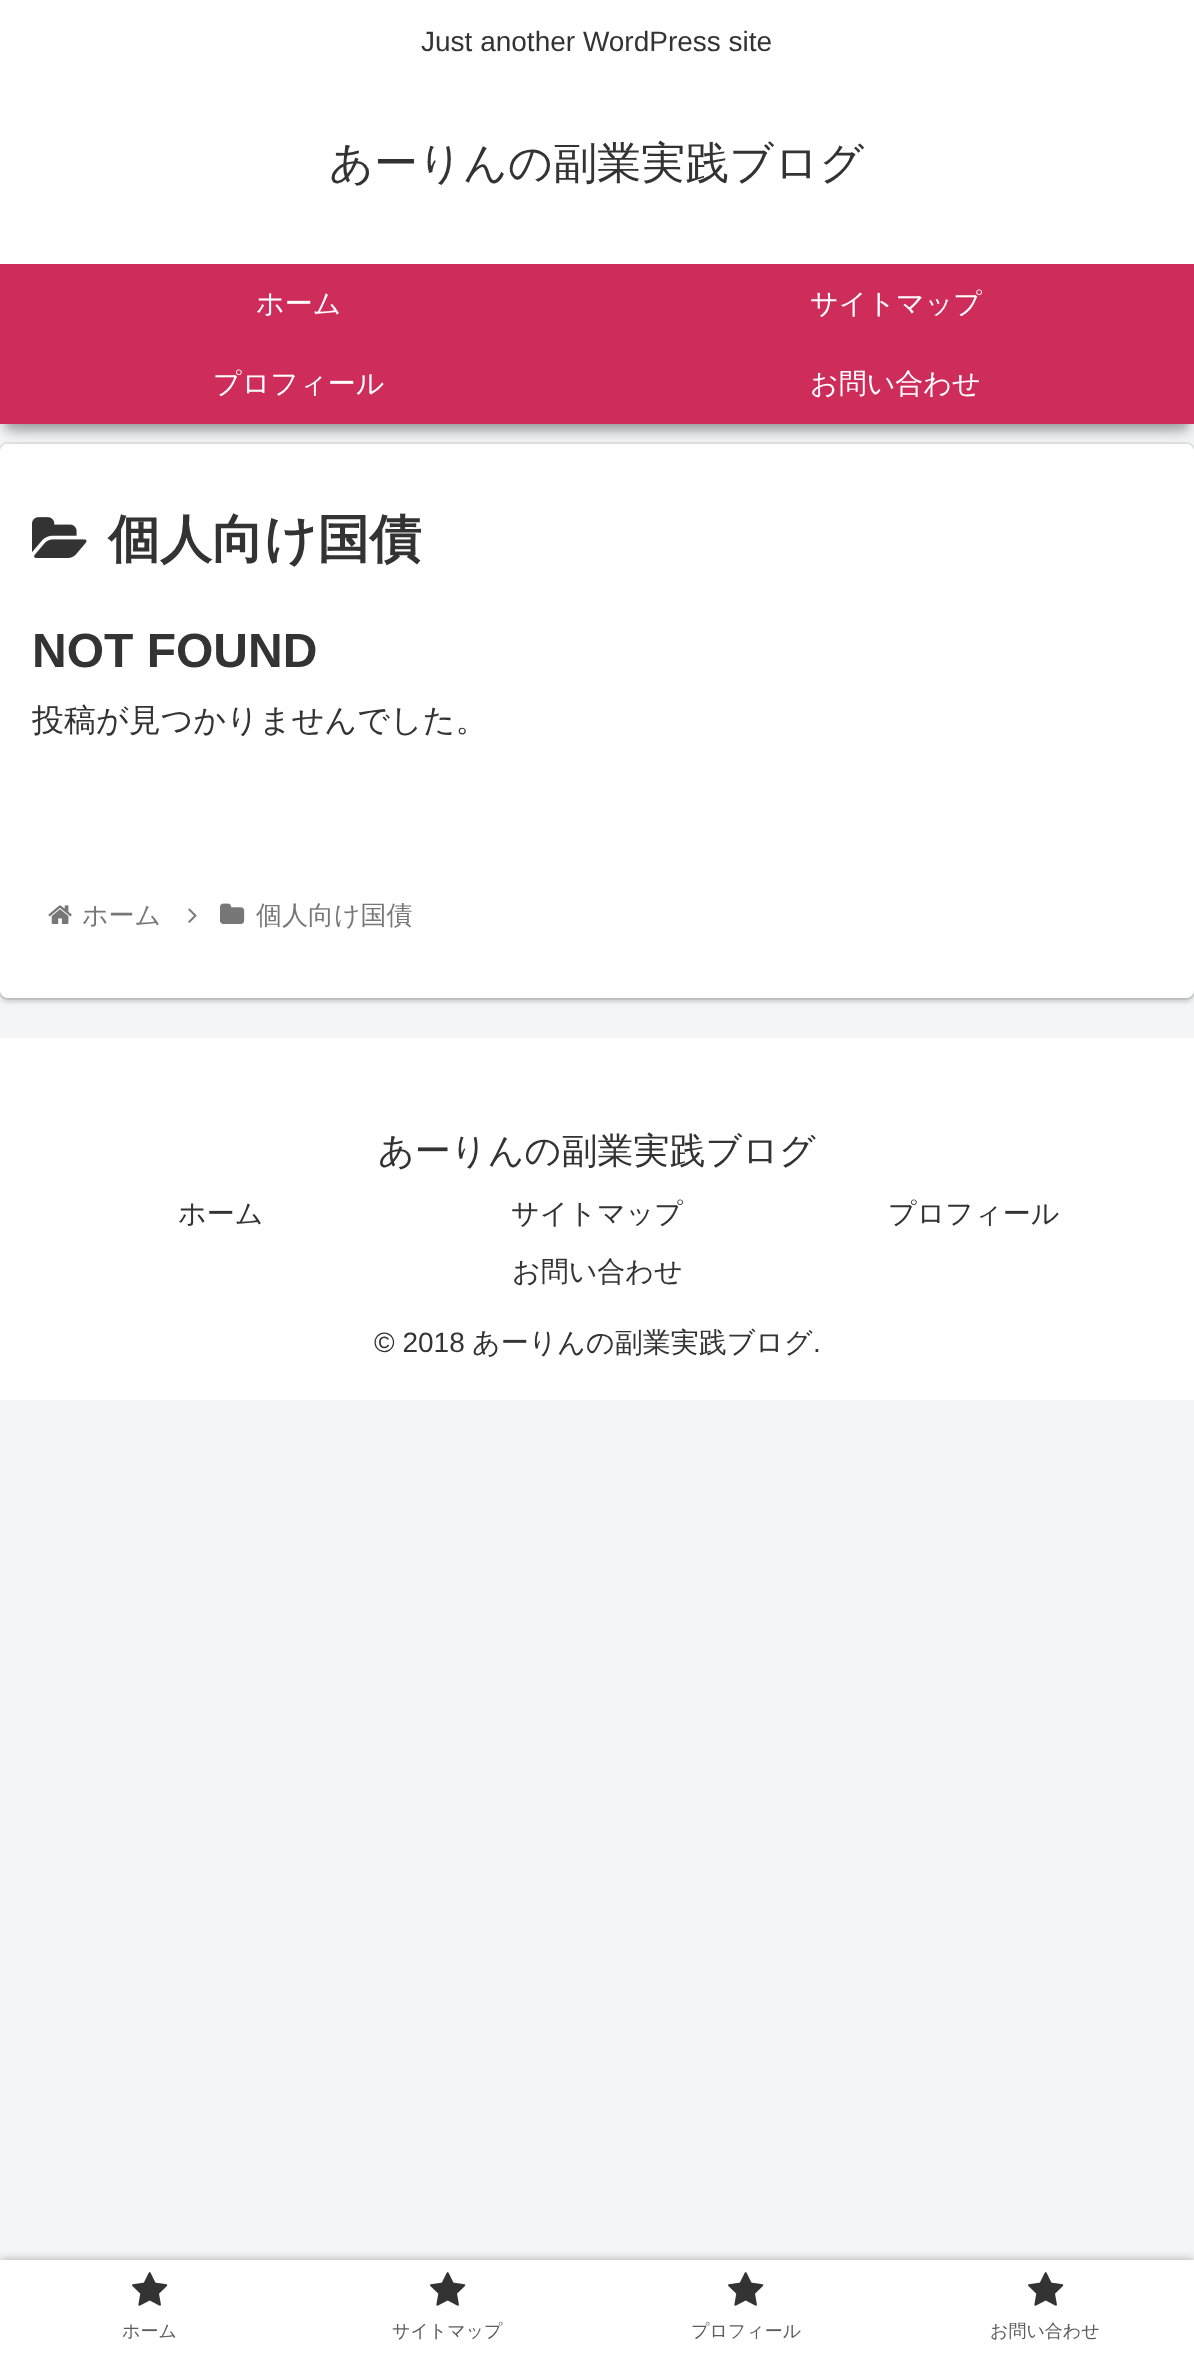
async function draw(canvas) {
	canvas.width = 1194;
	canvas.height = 2360;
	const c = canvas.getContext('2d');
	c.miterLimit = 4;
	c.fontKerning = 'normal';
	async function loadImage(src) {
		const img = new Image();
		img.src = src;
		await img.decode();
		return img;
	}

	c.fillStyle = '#f4f5f7';
	c.fillRect(0, 0, 1194, 2360);
	c.fillStyle = '#0000002e';
	c.filter = 'blur(10px)';
	c.beginPath();
	c.rect(6, 18, 1182, 412);
	c.fill();
	c.filter = 'none';
	c.fillStyle = '#0000003d';
	c.filter = 'blur(5px)';
	c.beginPath();
	c.rect(6, 18, 1182, 412);
	c.fill();
	c.filter = 'none';
	c.fillStyle = '#fff';
	c.fillRect(0, 0, 1194, 264);
	c.font = '28px Liberation Sans';
	c.fillStyle = '#333';
	c.fillText('Just another WordPress site', 421, 51);
	c.font = '500 44px WenQuanYi Zen Hei';
	c.fillText('あーりんの副業実践ブログ', 329, 178);
	c.fillStyle = '#ce2c5a';
	c.fillRect(0, 264, 1194, 160);
	c.font = '500 28px WenQuanYi Zen Hei';
	c.fillStyle = '#fff';
	for (const [text, x, y] of [
		['ホーム', 256, 313],
		['サイトマップ', 810, 313],
		['プロフィール', 213, 393],
		['お問い合わせ', 810, 393],
	]) {
		c.fillText(text, x, y);
	}
	c.beginPath();
	c.roundRect(-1, 443, 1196, 556, 9);
	c.strokeStyle = '#00000014';
	c.lineWidth = 2;
	c.stroke();
	c.fillStyle = '#00000029';
	c.filter = 'blur(2px)';
	c.beginPath();
	c.roundRect(0, 448, 1194, 554, 8);
	c.fill();
	c.filter = 'none';
	c.fillStyle = '#fff';
	c.beginPath();
	c.roundRect(0, 444, 1194, 554, 8);
	c.fill();
	c.drawImage(await loadImage('img1.png'), 32, 517, 55, 41);
	c.font = 'bold 52px WenQuanYi Zen Hei';
	c.fillStyle = '#333';
	c.fillText('個人向け国債', 108, 557);
	c.font = 'bold 48px Liberation Sans';
	c.fillText('NOT FOUND', 32, 667);
	c.font = '500 32px WenQuanYi Zen Hei';
	c.fillText('投稿が見つかりませんでした。', 32, 731);
	c.drawImage(await loadImage('img2.png'), 48, 905, 24, 19);
	c.font = '500 26px WenQuanYi Zen Hei';
	c.fillStyle = '#777';
	c.fillText('ホーム', 82, 924);
	c.drawImage(await loadImage('img3.png'), 188, 908, 9, 15);
	c.drawImage(await loadImage('img4.png'), 220, 903, 25, 21);
	c.fillText('個人向け国債', 256, 924);
	c.fillStyle = '#fff';
	c.fillRect(0, 1038, 1194, 362);
	c.font = '500 36px WenQuanYi Zen Hei';
	c.fillStyle = '#333';
	c.fillText('あーりんの副業実践ブログ', 378, 1163);
	c.font = '500 28px WenQuanYi Zen Hei';
	for (const [text, x, y] of [
		['ホーム', 178, 1223],
		['サイトマップ', 511, 1223],
		['プロフィール', 888, 1223],
		['お問い合わせ', 512, 1281],
	]) {
		c.fillText(text, x, y);
	}
	c.font = '28px Liberation Sans';
	c.fillText('© 2018', 374, 1352);
	c.font = '500 28px WenQuanYi Zen Hei';
	c.fillText('あーりんの副業実践ブログ', 472, 1352);
	c.font = '28px Liberation Sans';
	c.fillText('.', 813, 1352);
	c.fillStyle = '#a9a9a9';
	c.filter = 'blur(5px)';
	c.beginPath();
	c.rect(0, 2260, 1194, 100);
	c.fill();
	c.filter = 'none';
	c.fillStyle = '#fff';
	c.fillRect(0, 2260, 1194, 100);
	c.drawImage(await loadImage('img5.png'), 132, 2272, 36, 34);
	c.font = '500 18px WenQuanYi Zen Hei';
	c.fillStyle = '#5c5c5c';
	c.fillText('ホーム', 122, 2337);
	c.drawImage(await loadImage('img5.png'), 430, 2272, 36, 34);
	c.fillText('サイトマップ', 392, 2337);
	c.drawImage(await loadImage('img5.png'), 728, 2272, 36, 34);
	c.fillText('プロフィール', 691, 2337);
	c.drawImage(await loadImage('img5.png'), 1028, 2272, 36, 34);
	c.fillText('お問い合わせ', 990, 2337);
}

draw(document.querySelector('canvas'));
